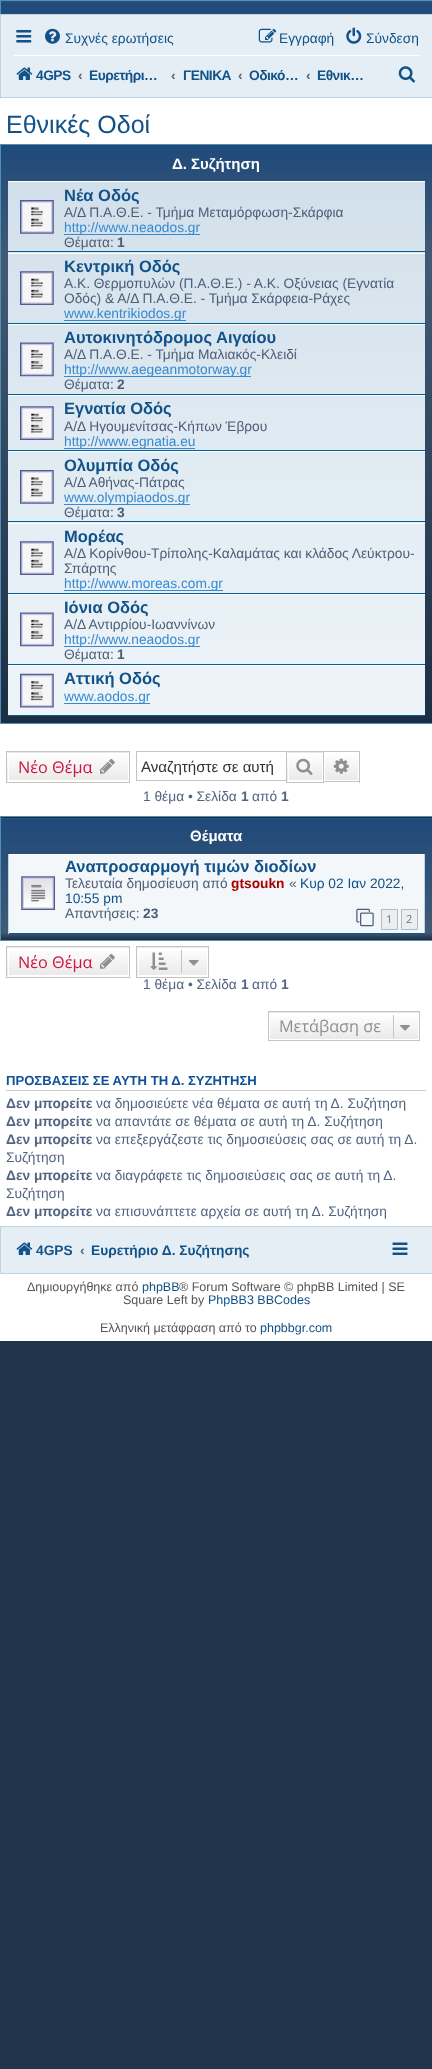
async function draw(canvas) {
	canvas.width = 432;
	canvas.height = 2069;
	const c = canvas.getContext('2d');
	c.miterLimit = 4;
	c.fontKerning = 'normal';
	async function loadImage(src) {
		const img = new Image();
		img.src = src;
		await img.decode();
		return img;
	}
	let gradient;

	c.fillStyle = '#20354c';
	c.fillRect(0, 0, 432, 2069);
	c.fillStyle = '#fff';
	c.fillRect(0, 98, 432, 1243);
	gradient = c.createLinearGradient(216, 1.2, 216, 116);
	gradient.addColorStop(0, '#315275');
	gradient.addColorStop(0.02, '#1f4a7a');
	gradient.addColorStop(1, '#425a75');
	gradient.addColorStop(1, '#1c2e43');
	c.fillStyle = gradient;
	c.fillRect(1, 1, 431, 13);
	c.strokeStyle = '#4f91b6';
	c.strokeRect(0.5, 0.5, 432, 14);
	c.fillStyle = '#e5eef5';
	c.beginPath();
	c.rect(0.5, 14.5, 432, 83);
	c.fill();
	c.strokeStyle = '#bcd4e3';
	c.stroke();
	c.drawImage(await loadImage('img1.png'), 16, 30, 16, 13);
	c.drawImage(await loadImage('img2.png'), 45, 28, 15, 16);
	c.font = '13.75px Liberation Sans';
	c.fillStyle = '#105289';
	c.fillText('Συχνές ερωτήσεις', 65, 43);
	c.drawImage(await loadImage('img3.png'), 258, 28, 19, 15);
	c.fillText('Εγγραφή', 279, 43);
	c.drawImage(await loadImage('img4.png'), 346, 27, 16, 17);
	c.fillText('Σύνδεση', 366, 43);
	c.fillStyle = '#fff';
	c.fillRect(14, 55, 405, 1);
	c.drawImage(await loadImage('img5.png'), 16, 67, 17, 13);
	c.letterSpacing = '-0.5px';
	c.font = 'bold 13.75px Liberation Sans';
	c.fillStyle = '#105289';
	c.fillText('4GPS', 36, 80);
	c.letterSpacing = '0px';
	c.fillStyle = '#536482';
	c.fillText('‹', 78, 80);
	c.letterSpacing = '-0.5px';
	c.fillStyle = '#105289';
	c.fillText('Ευρετήρι…', 89, 80);
	c.letterSpacing = '0px';
	c.fillStyle = '#536482';
	c.fillText('‹', 171, 80);
	c.letterSpacing = '-0.5px';
	c.fillStyle = '#105289';
	c.fillText('ΓΕΝΙΚΑ', 183, 80);
	c.letterSpacing = '0px';
	c.fillStyle = '#536482';
	c.fillText('‹', 238, 80);
	c.letterSpacing = '-0.5px';
	c.fillStyle = '#105289';
	c.fillText('Οδικό…', 249, 80);
	c.letterSpacing = '0px';
	c.fillStyle = '#536482';
	c.fillText('‹', 306, 80);
	c.letterSpacing = '-0.5px';
	c.fillStyle = '#105289';
	c.fillText('Εθνικ…', 317, 80);
	c.drawImage(await loadImage('img6.png'), 398, 66, 17, 17);
	c.letterSpacing = '0px';
	c.font = '25px Liberation Sans';
	c.fillText('Εθνικές Οδοί', 6, 133);
	gradient = c.createLinearGradient(216, 145, 216, 723);
	gradient.addColorStop(0, '#315275');
	gradient.addColorStop(0, '#1f4a7a');
	gradient.addColorStop(0.2, '#425a75');
	gradient.addColorStop(1, '#1c2e43');
	c.fillStyle = gradient;
	c.fillRect(1, 145, 431, 578);
	c.strokeStyle = '#4f91b6';
	c.strokeRect(0.5, 144.5, 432, 579);
	c.font = 'bold 15px Liberation Sans';
	c.fillStyle = '#fff';
	c.fillText('Δ. Συζήτηση', 172, 169);
	gradient = c.createLinearGradient(216, 181, 216, 716);
	gradient.addColorStop(0, '#d2e0eb');
	gradient.addColorStop(1, '#eef5f9');
	c.fillStyle = gradient;
	c.fillRect(8, 182, 417, 533);
	c.fillStyle = '#fff';
	c.fillRect(8, 181, 417, 1);
	c.fillStyle = '#00608f';
	c.fillRect(8, 251, 417, 1);
	c.drawImage(await loadImage('img7.png'), 20, 200, 34, 34);
	c.font = 'bold 16.5px Liberation Sans';
	c.fillStyle = '#105289';
	c.fillText('Νέα Οδός', 64, 201);
	c.font = '13.75px Liberation Sans';
	c.fillStyle = '#4c5d77';
	c.fillText('Α/Δ Π.Α.Θ.Ε. - Τμήμα Μεταμόρφωση-Σκάρφια', 64, 217);
	c.fillStyle = '#368ad2';
	c.fillRect(64, 234, 136, 1);
	c.fillText('http://www.neaodos.gr', 64, 232);
	c.fillStyle = '#4c5d77';
	c.fillText('Θέματα:', 64, 247);
	c.font = 'bold 13.75px Liberation Sans';
	c.fillText('1', 117, 247);
	c.fillStyle = '#fff';
	c.fillRect(8, 253, 417, 1);
	c.fillStyle = '#00608f';
	c.fillRect(8, 323, 417, 1);
	c.drawImage(await loadImage('img8.png'), 20, 271, 34, 34);
	c.font = 'bold 16.5px Liberation Sans';
	c.fillStyle = '#105289';
	c.fillText('Κεντρική Οδός', 64, 272);
	c.font = '13.75px Liberation Sans';
	c.fillStyle = '#4c5d77';
	c.fillText('Α.Κ. Θερμοπυλών (Π.Α.Θ.Ε.) - Α.Κ. Οξύνειας (Εγνατία', 64, 288);
	c.fillText('Οδός) & Α/Δ Π.Α.Θ.Ε. - Τμήμα Σκάρφεια-Ράχες', 64, 303);
	c.fillStyle = '#368ad2';
	c.fillRect(64, 320, 122, 1);
	c.fillText('www.kentrikiodos.gr', 64, 318);
	c.fillStyle = '#fff';
	c.fillRect(8, 324, 417, 1);
	c.fillStyle = '#00608f';
	c.fillRect(8, 394, 417, 1);
	c.drawImage(await loadImage('img9.png'), 20, 342, 34, 35);
	c.font = 'bold 16.5px Liberation Sans';
	c.fillStyle = '#105289';
	c.fillText('Αυτοκινητόδρομος Αιγαίου', 64, 343);
	c.font = '13.75px Liberation Sans';
	c.fillStyle = '#4c5d77';
	c.fillText('Α/Δ Π.Α.Θ.Ε. - Τμήμα Μαλιακός-Κλειδί', 64, 359);
	c.fillStyle = '#368ad2';
	c.fillRect(64, 376, 187, 1);
	c.fillText('http://www.aegeanmotorway.gr', 64, 374);
	c.fillStyle = '#4c5d77';
	c.fillText('Θέματα:', 64, 389);
	c.font = 'bold 13.75px Liberation Sans';
	c.fillText('2', 117, 389);
	c.fillStyle = '#fff';
	c.fillRect(8, 395, 417, 1);
	c.fillStyle = '#00608f';
	c.fillRect(8, 450, 417, 1);
	c.drawImage(await loadImage('img10.png'), 20, 406, 34, 34);
	c.font = 'bold 16.5px Liberation Sans';
	c.fillStyle = '#105289';
	c.fillText('Εγνατία Οδός', 64, 414);
	c.font = '13.75px Liberation Sans';
	c.fillStyle = '#4c5d77';
	c.fillText('Α/Δ Ηγουμενίτσας-Κήπων Έβρου', 64, 431);
	c.fillStyle = '#368ad2';
	c.fillRect(64, 448, 131, 1);
	c.fillText('http://www.egnatia.eu', 64, 446);
	c.fillStyle = '#fff';
	c.fillRect(8, 451, 417, 1);
	c.fillStyle = '#00608f';
	c.fillRect(8, 521, 417, 1);
	c.drawImage(await loadImage('img11.png'), 20, 470, 34, 34);
	c.font = 'bold 16.5px Liberation Sans';
	c.fillStyle = '#105289';
	c.fillText('Ολυμπία Οδός', 64, 471);
	c.font = '13.75px Liberation Sans';
	c.fillStyle = '#4c5d77';
	c.fillText('Α/Δ Αθήνας-Πάτρας', 64, 487);
	c.fillStyle = '#368ad2';
	c.fillRect(64, 504, 126, 1);
	c.fillText('www.olympiaodos.gr', 64, 502);
	c.fillStyle = '#4c5d77';
	c.fillText('Θέματα:', 64, 517);
	c.font = 'bold 13.75px Liberation Sans';
	c.fillText('3', 117, 517);
	c.fillStyle = '#fff';
	c.fillRect(8, 523, 417, 1);
	c.fillStyle = '#00608f';
	c.fillRect(8, 593, 417, 1);
	c.drawImage(await loadImage('img12.png'), 20, 541, 34, 34);
	c.font = 'bold 16.5px Liberation Sans';
	c.fillStyle = '#105289';
	c.fillText('Μορέας', 64, 542);
	c.font = '13.75px Liberation Sans';
	c.fillStyle = '#4c5d77';
	c.fillText('Α/Δ Κορίνθου-Τρίπολης-Καλαμάτας και κλάδος Λεύκτρου-', 64, 558);
	c.fillText('Σπάρτης', 64, 573);
	c.fillStyle = '#368ad2';
	c.fillRect(64, 590, 159, 1);
	c.fillText('http://www.moreas.com.gr', 64, 588);
	c.fillStyle = '#fff';
	c.fillRect(8, 594, 417, 1);
	c.fillStyle = '#00608f';
	c.fillRect(8, 664, 417, 1);
	c.drawImage(await loadImage('img13.png'), 20, 612, 34, 35);
	c.font = 'bold 16.5px Liberation Sans';
	c.fillStyle = '#105289';
	c.fillText('Ιόνια Οδός', 64, 613);
	c.font = '13.75px Liberation Sans';
	c.fillStyle = '#4c5d77';
	c.fillText('Α/Δ Αντιρρίου-Ιωαννίνων', 64, 629);
	c.fillStyle = '#368ad2';
	c.fillRect(64, 646, 136, 1);
	c.fillText('http://www.neaodos.gr', 64, 644);
	c.fillStyle = '#4c5d77';
	c.fillText('Θέματα:', 64, 659);
	c.font = 'bold 13.75px Liberation Sans';
	c.fillText('1', 117, 659);
	c.fillStyle = '#fff';
	c.fillRect(8, 665, 417, 1);
	c.fillStyle = '#00608f';
	c.fillRect(8, 715, 417, 1);
	c.drawImage(await loadImage('img14.png'), 20, 673, 34, 35);
	c.font = 'bold 16.5px Liberation Sans';
	c.fillStyle = '#105289';
	c.fillText('Αττική Οδός', 64, 684);
	c.fillStyle = '#368ad2';
	c.fillRect(64, 703, 86, 1);
	c.font = '13.75px Liberation Sans';
	c.fillText('www.aodos.gr', 64, 701);
	c.fillStyle = '#e9e9e9';
	c.fillRect(7, 752, 122, 1);
	gradient = c.createLinearGradient(68, 753, 68, 781);
	gradient.addColorStop(0, '#fff');
	gradient.addColorStop(1, '#e9e9e9');
	c.fillStyle = gradient;
	c.fillRect(7, 756, 121, 25);
	c.strokeStyle = '#fff';
	c.strokeRect(8.5, 753.5, 120, 27);
	c.strokeStyle = '#c7c3bf';
	c.strokeRect(6.5, 751.5, 123, 31);
	c.font = '16.25px Open Sans';
	c.fillStyle = '#d31141';
	c.fillText('Νέο Θέμα', 18, 773);
	c.drawImage(await loadImage('img15.png'), 100, 759, 15, 15);
	for (const [x, y, w, h, color] of [
		[136, 751, 150, 1, '#c7c3bf'],
		[136, 780, 150, 1, '#c7c3bf'],
		[136, 751, 1, 30, '#c7c3bf'],
	]) {
		c.fillStyle = color;
		c.fillRect(x, y, w, h);
	}
	c.save();
	c.beginPath();
	c.rect(141, 758, 137, 17);
	c.clip();
	c.font = '15.1px Liberation Sans';
	c.fillStyle = '#333';
	c.fillText('Αναζητήστε σε αυτή', 141, 772);
	c.restore();
	c.fillStyle = '#e9e9e9';
	c.fillRect(287, 752, 36, 1);
	gradient = c.createLinearGradient(305, 753, 305, 781);
	gradient.addColorStop(0, '#fff');
	gradient.addColorStop(1, '#e9e9e9');
	c.fillStyle = gradient;
	c.fillRect(287, 756, 35, 25);
	c.strokeStyle = '#fff';
	c.strokeRect(288.5, 753.5, 34, 27);
	c.strokeStyle = '#c7c3bf';
	c.strokeRect(286.5, 751.5, 37, 31);
	c.drawImage(await loadImage('img16.png'), 296, 758, 17, 17);
	gradient = c.createLinearGradient(341, 753, 341, 781);
	gradient.addColorStop(0, '#fff');
	gradient.addColorStop(1, '#e9e9e9');
	c.fillStyle = gradient;
	c.fillRect(325, 756, 33, 24);
	for (const [x, y, w, h, color] of [
		[324, 751, 36, 1, '#c7c3bf'],
		[359, 751, 1, 32, '#c7c3bf'],
		[324, 781, 36, 1, '#c7c3bf'],
	]) {
		c.fillStyle = color;
		c.fillRect(x, y, w, h);
	}
	c.drawImage(await loadImage('img17.png'), 333, 758, 16, 16);
	c.font = '13.75px Liberation Sans';
	c.fillStyle = '#536482';
	c.fillText('1 θέμα • Σελίδα', 143, 801);
	c.font = 'bold 13.75px Liberation Sans';
	c.fillText('1', 241, 801);
	c.font = '13.75px Liberation Sans';
	c.fillText('από', 252, 801);
	c.font = 'bold 13.75px Liberation Sans';
	c.fillText('1', 281, 801);
	c.fillStyle = '#1c2e43';
	c.fillRect(1, 817, 431, 1);
	gradient = c.createLinearGradient(216, 818, 216, 940);
	gradient.addColorStop(0, '#315275');
	gradient.addColorStop(0.02, '#1f4a7a');
	gradient.addColorStop(0.94, '#425a75');
	gradient.addColorStop(1, '#1c2e43');
	c.fillStyle = gradient;
	c.fillRect(1, 818, 431, 122);
	c.strokeStyle = '#4f91b6';
	c.strokeRect(0.5, 816.5, 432, 124);
	c.font = 'bold 15px Liberation Sans';
	c.fillStyle = '#fff';
	c.fillText('Θέματα', 190, 841);
	for (const [x, y, w, h, color] of [
		[9, 855, 415, 78, '#f3f7fa'],
		[8, 854, 417, 1, '#fff'],
		[424, 854, 1, 80, '#bcd4e3'],
		[8, 933, 417, 1, '#00608f'],
		[8, 854, 1, 80, '#bcd4e3'],
	]) {
		c.fillStyle = color;
		c.fillRect(x, y, w, h);
	}
	c.drawImage(await loadImage('img18.png'), 21, 876, 34, 34);
	c.font = 'bold 16.5px Liberation Sans';
	c.fillStyle = '#105289';
	c.fillText('Αναπροσαρμογή τιμών διοδίων', 65, 872);
	c.font = '13.75px Liberation Sans';
	c.fillStyle = '#4c5d77';
	c.fillText('Τελευταία δημοσίευση από', 65, 888);
	c.font = 'bold 13.75px Liberation Sans';
	c.fillStyle = '#a00';
	c.fillText('gtsoukn', 231, 888);
	c.font = '13.75px Liberation Sans';
	c.fillStyle = '#4c5d77';
	c.fillText('«', 289, 888);
	c.fillStyle = '#105289';
	c.fillText('Κυρ 02 Ιαν 2022,', 300, 888);
	c.fillText('10:55 pm', 65, 903);
	c.fillStyle = '#4c5d77';
	c.fillText('Απαντήσεις:', 65, 918);
	c.font = 'bold 13.75px Liberation Sans';
	c.fillText('23', 143, 918);
	c.drawImage(await loadImage('img19.png'), 356, 908, 18, 19);
	c.fillStyle = '#ecedee';
	c.beginPath();
	c.rect(381.5, 909.5, 16, 20);
	c.fill();
	c.strokeStyle = '#b4bac0';
	c.stroke();
	c.font = '11px Open Sans';
	c.fillStyle = '#5c758c';
	c.fillText('1', 386, 923);
	c.fillStyle = '#ecedee';
	c.beginPath();
	c.rect(401.5, 909.5, 16, 20);
	c.fill();
	c.stroke();
	c.fillStyle = '#5c758c';
	c.fillText('2', 406, 923);
	c.fillStyle = '#e9e9e9';
	c.fillRect(7, 947, 122, 1);
	gradient = c.createLinearGradient(68, 948, 68, 976);
	gradient.addColorStop(0, '#fff');
	gradient.addColorStop(1, '#e9e9e9');
	c.fillStyle = gradient;
	c.fillRect(7, 951, 121, 25);
	c.strokeStyle = '#fff';
	c.strokeRect(8.5, 948.5, 120, 27);
	c.strokeStyle = '#c7c3bf';
	c.strokeRect(6.5, 946.5, 123, 31);
	c.font = '16.25px Open Sans';
	c.fillStyle = '#d31141';
	c.fillText('Νέο Θέμα', 18, 968);
	c.drawImage(await loadImage('img15.png'), 100, 954, 15, 15);
	c.fillStyle = '#e9e9e9';
	c.fillRect(137, 947, 71, 1);
	gradient = c.createLinearGradient(173, 948, 173, 976);
	gradient.addColorStop(0, '#fff');
	gradient.addColorStop(1, '#e9e9e9');
	c.fillStyle = gradient;
	c.fillRect(137, 951, 70, 25);
	c.strokeStyle = '#fff';
	c.strokeRect(138.5, 948.5, 69, 27);
	c.strokeStyle = '#c7c3bf';
	c.strokeRect(136.5, 946.5, 72, 31);
	c.drawImage(await loadImage('img20.png'), 150, 952, 18, 18);
	c.fillStyle = '#c7c3bf';
	c.fillRect(181, 950, 1, 23);
	c.drawImage(await loadImage('img21.png'), 188, 960, 11, 6);
	c.font = '13.75px Liberation Sans';
	c.fillStyle = '#536482';
	c.fillText('1 θέμα • Σελίδα', 143, 989);
	c.font = 'bold 13.75px Liberation Sans';
	c.fillText('1', 241, 989);
	c.font = '13.75px Liberation Sans';
	c.fillText('από', 252, 989);
	c.font = 'bold 13.75px Liberation Sans';
	c.fillText('1', 281, 989);
	c.fillStyle = '#e9e9e9';
	c.fillRect(269, 1012, 150, 1);
	gradient = c.createLinearGradient(344, 1013, 344, 1040);
	gradient.addColorStop(0, '#fff');
	gradient.addColorStop(1, '#e9e9e9');
	c.fillStyle = gradient;
	c.fillRect(270, 1016, 148, 23);
	c.strokeRect(268.5, 1011.5, 151, 29);
	c.font = '16.25px Open Sans';
	c.fillStyle = '#8f8f8f';
	c.fillText('Μετάβαση σε', 279, 1032);
	c.fillStyle = '#c7c3bf';
	c.fillRect(393, 1015, 1, 23);
	c.drawImage(await loadImage('img22.png'), 400, 1025, 10, 6);
	c.fillStyle = '#ccc';
	c.fillRect(6, 1090, 420, 1);
	c.font = 'bold 13.1px Liberation Sans';
	c.fillStyle = '#115098';
	c.fillText('ΠΡΟΣΒΑΣΕΙΣ ΣΕ ΑΥΤΗ ΤΗ Δ. ΣΥΖΗΤΗΣΗ', 6, 1085);
	c.font = 'bold 13.75px Liberation Sans';
	c.fillStyle = '#536482';
	c.fillText('Δεν μπορείτε', 6, 1108);
	c.font = '13.75px Liberation Sans';
	c.fillText('να δημοσιεύετε νέα θέματα σε αυτή τη Δ. Συζήτηση', 96, 1108);
	c.font = 'bold 13.75px Liberation Sans';
	c.fillText('Δεν μπορείτε', 6, 1126);
	c.font = '13.75px Liberation Sans';
	c.fillText('να απαντάτε σε θέματα σε αυτή τη Δ. Συζήτηση', 96, 1126);
	c.font = 'bold 13.75px Liberation Sans';
	c.fillText('Δεν μπορείτε', 6, 1144);
	c.font = '13.75px Liberation Sans';
	c.fillText('να επεξεργάζεστε τις δημοσιεύσεις σας σε αυτή τη Δ.', 96, 1144);
	c.fillText('Συζήτηση', 6, 1162);
	c.font = 'bold 13.75px Liberation Sans';
	c.fillText('Δεν μπορείτε', 6, 1180);
	c.font = '13.75px Liberation Sans';
	c.fillText('να διαγράφετε τις δημοσιεύσεις σας σε αυτή τη Δ.', 96, 1180);
	c.fillText('Συζήτηση', 6, 1198);
	c.font = 'bold 13.75px Liberation Sans';
	c.fillText('Δεν μπορείτε', 6, 1216);
	c.font = '13.75px Liberation Sans';
	c.fillText('να επισυνάπτετε αρχεία σε αυτή τη Δ. Συζήτηση', 96, 1216);
	c.fillStyle = '#e5eef5';
	c.beginPath();
	c.rect(0.5, 1226.5, 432, 47);
	c.fill();
	c.strokeStyle = '#bcd4e3';
	c.stroke();
	c.drawImage(await loadImage('img5.png'), 16, 1242, 17, 13);
	c.font = 'bold 13.75px Liberation Sans';
	c.fillStyle = '#105289';
	c.fillText('4GPS', 36, 1255);
	c.fillStyle = '#536482';
	c.fillText('‹', 80, 1255);
	c.fillStyle = '#105289';
	c.fillText('Ευρετήριο Δ. Συζήτησης', 91, 1255);
	c.drawImage(await loadImage('img23.png'), 392, 1242, 16, 13);
	c.font = '12.5px Liberation Sans';
	c.fillStyle = '#555';
	c.fillText('Δημιουργήθηκε από', 27, 1291);
	c.fillStyle = '#105289';
	c.fillText('phpBB', 142, 1291);
	c.fillStyle = '#555';
	c.fillText('® Forum Software © phpBB Limited | SE', 179, 1291);
	c.fillText('Square Left by', 123, 1304);
	c.fillStyle = '#105289';
	c.fillText('PhpBB3 BBCodes', 208, 1304);
	c.fillStyle = '#555';
	c.fillText('Ελληνική μετάφραση από το', 100, 1332);
	c.fillStyle = '#105289';
	c.fillText('phpbbgr.com', 260, 1332);
}

draw(document.querySelector('canvas'));
